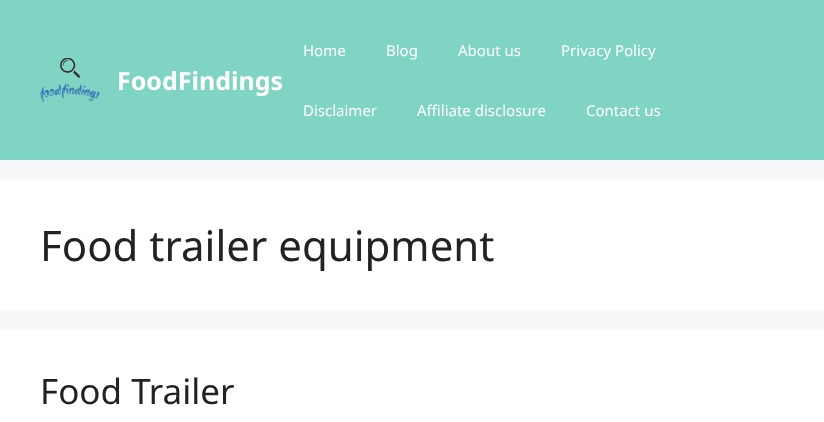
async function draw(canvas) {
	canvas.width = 824;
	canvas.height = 422;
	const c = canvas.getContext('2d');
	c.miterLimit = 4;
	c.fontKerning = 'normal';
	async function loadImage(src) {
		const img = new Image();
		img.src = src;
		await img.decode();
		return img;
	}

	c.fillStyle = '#f7f8f9';
	c.fillRect(0, 0, 824, 422);
	c.fillStyle = '#80d4c3';
	c.fillRect(0, 0, 824, 160);
	c.drawImage(await loadImage('img1.png'), 40, 58, 60, 44);
	c.font = 'bold 25px Noto Sans';
	c.fillStyle = '#fff';
	c.fillText('FoodFindings', 117, 90);
	c.font = '15px Noto Sans';
	for (const [text, x, y] of [
		['Home', 303, 56],
		['Blog', 386, 56],
		['About us', 458, 56],
		['Privacy Policy', 561, 56],
		['Disclaimer', 303, 116],
		['Affiliate disclosure', 417, 116],
		['Contact us', 586, 116],
	]) {
		c.fillText(text, x, y);
	}
	c.fillRect(0, 180, 824, 130);
	c.font = '42px Noto Sans';
	c.fillStyle = '#222';
	c.fillText('Food trailer equipment', 40, 261);
	c.fillStyle = '#fff';
	c.fillRect(0, 330, 824, 92);
	c.font = '35px Noto Sans';
	c.fillStyle = '#222';
	c.fillText('Food Trailer', 40, 404);
}

draw(document.querySelector('canvas'));
